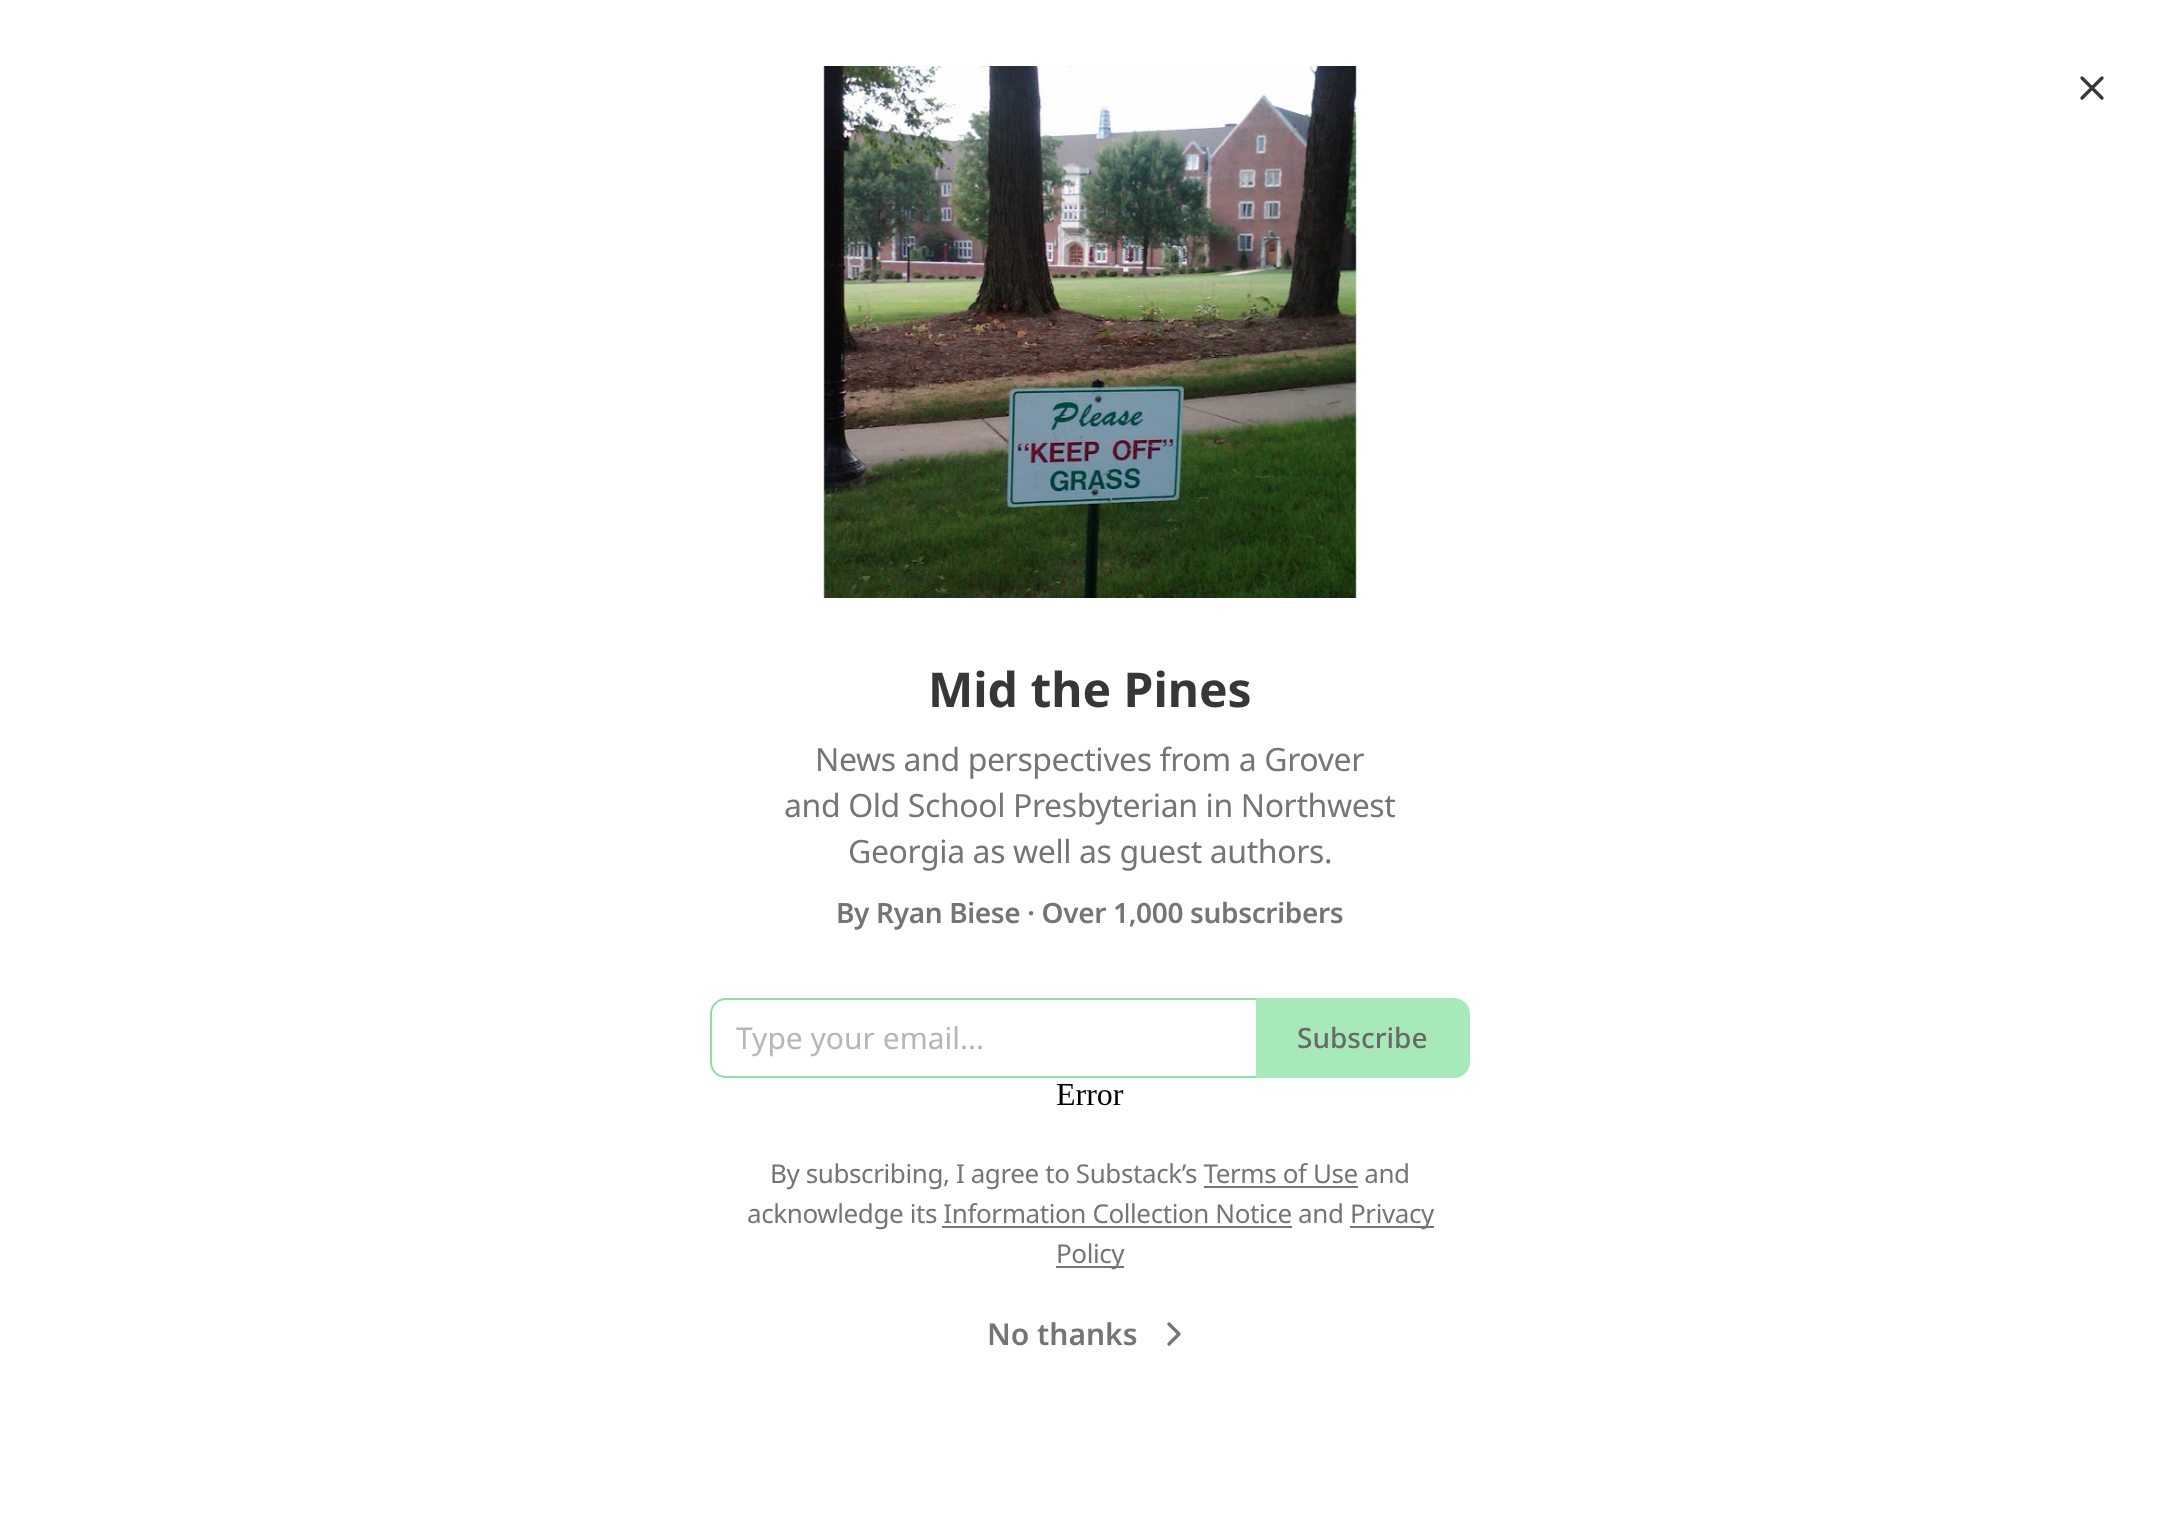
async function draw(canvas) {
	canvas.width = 2180;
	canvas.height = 1515;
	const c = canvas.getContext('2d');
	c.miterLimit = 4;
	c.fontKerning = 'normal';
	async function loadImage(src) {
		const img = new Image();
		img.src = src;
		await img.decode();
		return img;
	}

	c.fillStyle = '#fff';
	c.fillRect(0, 0, 2180, 1515);
	c.drawImage(await loadImage('img1.png'), 823, 66, 534, 532);
	c.beginPath();
	c.moveTo(2102, 78);
	c.lineTo(2082, 98);
	c.moveTo(2082, 78);
	c.lineTo(2102, 98);
	c.strokeStyle = '#363737';
	c.lineWidth = 3.3;
	c.lineCap = 'round';
	c.lineJoin = 'round';
	c.stroke();
	c.font = 'bold 48px Noto Sans';
	c.fillStyle = '#363737';
	c.fillText('Mid the Pines', 928, 707);
	c.letterSpacing = '-0.4px';
	c.font = '32px Noto Sans';
	c.fillStyle = '#757575';
	for (const [text, x, y] of [
		['News and perspectives from a Grover', 815, 771],
		['and Old School Presbyterian in Northwest', 784, 817],
		['Georgia as well as guest authors.', 848, 863],
	]) {
		c.fillText(text, x, y);
	}
	c.letterSpacing = '-0.35px';
	c.font = '600 28px Noto Sans';
	c.fillText('By Ryan Biese · Over 1,000 subscribers', 836, 923);
	c.fillStyle = '#8ae1a2';
	c.beginPath();
	c.moveTo(726, 998);
	c.lineTo(1256, 998);
	c.lineTo(1256, 1078);
	c.lineTo(726, 1078);
	c.bezierCurveTo(717, 1078, 710, 1071, 710, 1062);
	c.lineTo(710, 1014);
	c.bezierCurveTo(710, 1005, 717, 998, 726, 998);
	c.closePath();
	c.moveTo(726, 1000);
	c.lineTo(1256, 1000);
	c.lineTo(1256, 1076);
	c.lineTo(726, 1076);
	c.bezierCurveTo(718, 1076, 712, 1070, 712, 1062);
	c.lineTo(712, 1014);
	c.bezierCurveTo(712, 1006, 718, 1000, 726, 1000);
	c.closePath();
	c.fill('evenodd');
	c.letterSpacing = '0px';
	c.font = '30px Noto Sans';
	c.fillStyle = '#b6b6b6';
	c.fillText('Type your email...', 736, 1049);
	c.fillStyle = '#a7e9b9';
	c.beginPath();
	c.roundRect(1257, 999, 212, 78, [0, 15, 15, 0]);
	c.fill();
	c.strokeStyle = '#a7e9b9';
	c.lineWidth = 2;
	c.lineJoin = 'miter';
	c.stroke();
	c.font = '500 28px Noto Sans';
	c.fillStyle = '#686969';
	c.fillText('Subscribe', 1297, 1048);
	c.font = '32px Liberation Serif';
	c.fillStyle = '#000';
	c.fillText('Error', 1056, 1105);
	c.letterSpacing = '-0.4px';
	c.font = '26px Noto Sans';
	c.fillStyle = '#757575';
	c.fillText('By subscribing, I agree to Substack’s Terms of Use and', 770, 1183);
	c.fillRect(1204, 1186, 154, 2);
	c.fillText('acknowledge its Information Collection Notice and', 747, 1223);
	c.fillRect(1350, 1226, 84, 2);
	c.fillText('Privacy', 1350, 1223);
	c.fillRect(942, 1226, 350, 2);
	c.fillRect(1056, 1266, 68, 2);
	c.fillText('Policy', 1056, 1263);
	c.letterSpacing = '0px';
	c.font = '600 30px Noto Sans';
	c.fillText('No thanks', 987, 1345);
	c.beginPath();
	c.moveTo(1169, 1344);
	c.lineTo(1179, 1334);
	c.lineTo(1169, 1324);
	c.strokeStyle = '#757575';
	c.lineWidth = 3.3;
	c.lineJoin = 'round';
	c.stroke();
}

draw(document.querySelector('canvas'));
